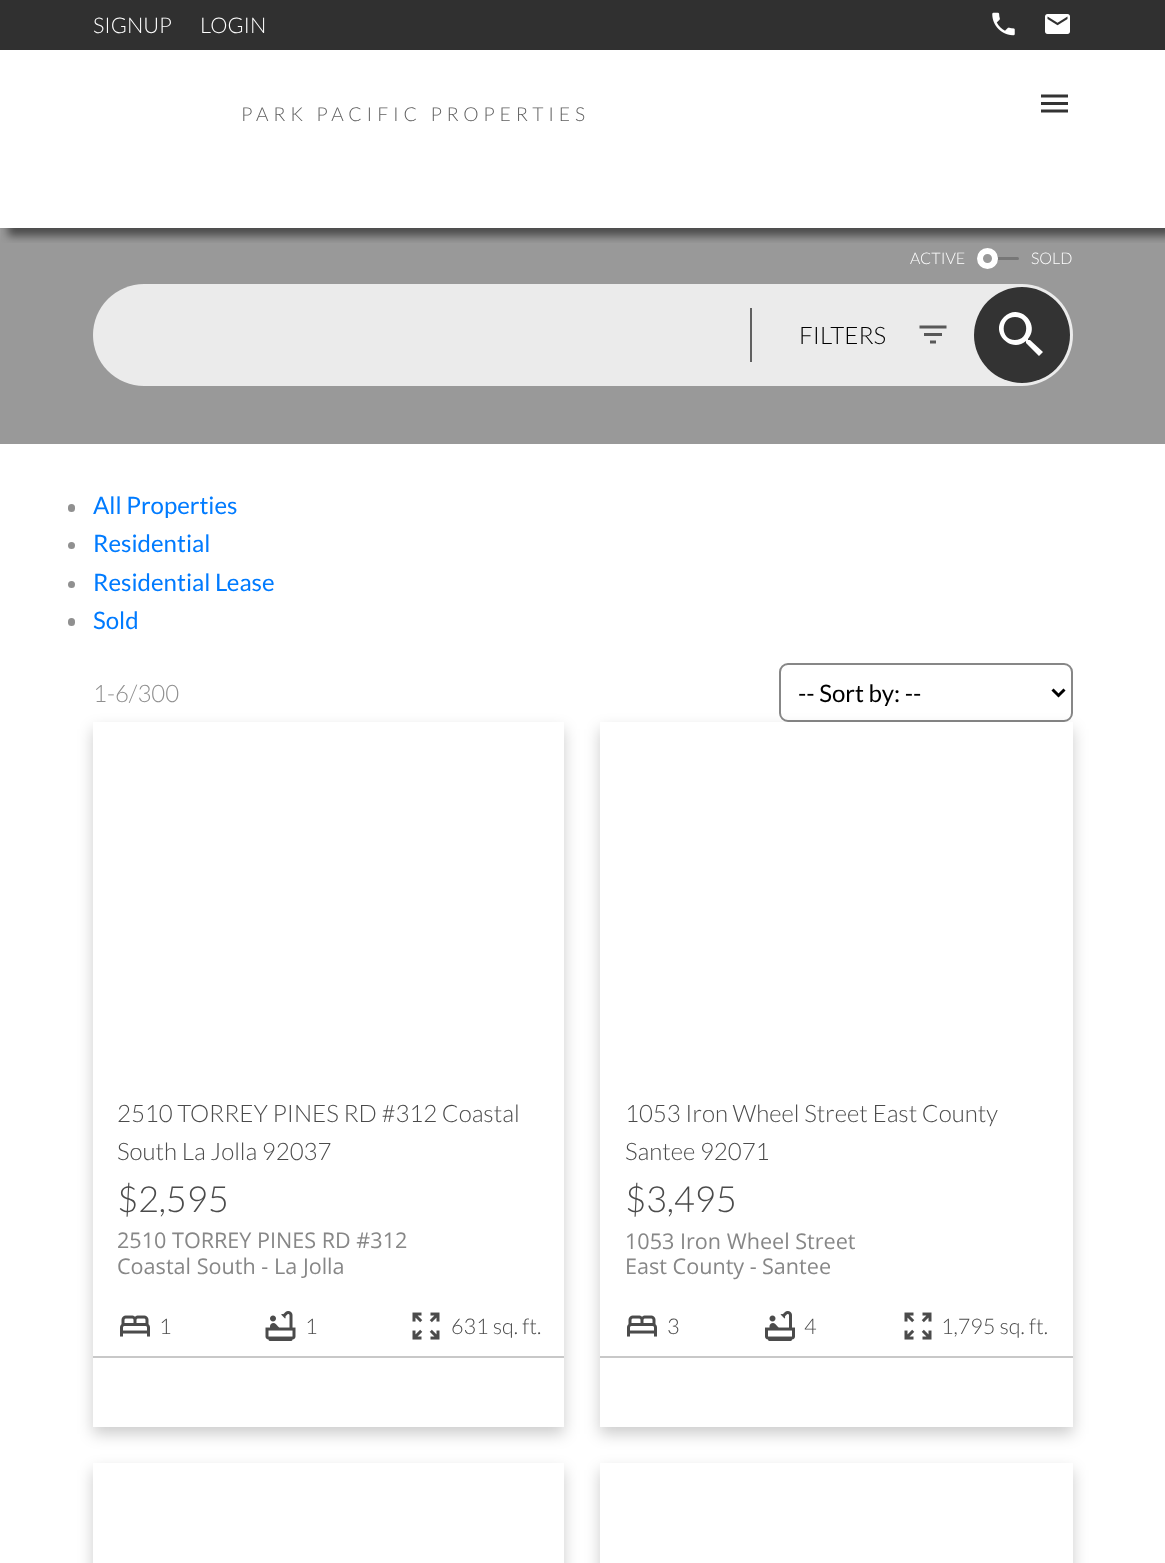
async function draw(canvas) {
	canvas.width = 1165;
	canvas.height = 1563;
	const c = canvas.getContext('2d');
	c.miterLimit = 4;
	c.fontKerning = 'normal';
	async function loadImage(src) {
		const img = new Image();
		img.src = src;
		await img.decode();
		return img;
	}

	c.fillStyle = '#fff';
	c.fillRect(0, 0, 1165, 1563);
	c.fillStyle = '#999';
	c.fillRect(0, 228, 1165, 216);
	c.beginPath();
	c.arc(987.5, 258.5, 7.5, 0, 2 * Math.PI);
	c.strokeStyle = '#fff';
	c.lineWidth = 6;
	c.stroke();
	c.save();
	c.beginPath();
	c.rect(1, 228, 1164, 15);
	c.clip();
	c.fillStyle = '#00000080';
	c.filter = 'blur(4px)';
	c.beginPath();
	c.rect(8, 8, 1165, 228);
	c.fill();
	c.filter = 'none';
	c.restore();
	c.fillStyle = '#303030';
	c.fillRect(0, 0, 1165, 50);
	c.font = '300 21.6px Lato';
	c.fillStyle = '#fff';
	c.fillText('SIGNUP', 93, 33);
	c.fillText('LOGIN', 200, 33);
	c.drawImage(await loadImage('img1.png'), 992, 12, 23, 24);
	c.drawImage(await loadImage('img2.png'), 1045, 14, 25, 20);
	c.drawImage(await loadImage('img3.png'), 1041, 94, 27, 19);
	c.letterSpacing = '4.8px';
	c.font = '300 19.25px Lato';
	c.fillStyle = '#606060';
	c.fillText('PARK PACIFIC PROPERTIES', 241, 121);
	c.letterSpacing = '0px';
	c.font = '300 16px Lato';
	c.fillStyle = '#fff';
	c.fillText('ACTIVE', 910, 264);
	c.fillStyle = '#777';
	c.beginPath();
	c.roundRect(998, 257, 21, 3, [0, 1.5, 1.5, 0]);
	c.fill();
	c.fillStyle = '#fff';
	c.fillText('SOLD', 1031, 264);
	c.fillStyle = '#ebebeb';
	c.beginPath();
	c.roundRect(93, 284, 980, 102, 51);
	c.fill();
	c.drawImage(await loadImage('img4.png'), 919, 325, 28, 19);
	c.fillStyle = '#606060';
	c.fillRect(750, 308, 2, 54);
	c.font = '300 24px Lato';
	c.fillStyle = '#000';
	c.fillText('FILTERS', 799, 344);
	c.fillStyle = '#333';
	c.beginPath();
	c.arc(1022, 335, 48, 0, 2 * Math.PI);
	c.fill();
	c.fillStyle = '#fff';
	c.beginPath();
	c.moveTo(1030, 340);
	c.lineTo(1028, 340);
	c.lineTo(1028, 339);
	c.bezierCurveTo(1041, 324, 1019, 302, 1004, 317);
	c.bezierCurveTo(989, 332, 1011, 354, 1026, 341);
	c.lineTo(1026, 343);
	c.lineTo(1039, 356);
	c.lineTo(1043, 352);
	c.closePath();
	c.moveTo(1015, 340);
	c.bezierCurveTo(1000, 340, 1000, 317, 1015, 317);
	c.bezierCurveTo(1030, 317, 1030, 340, 1015, 340);
	c.closePath();
	c.fill();
	c.fillStyle = '#909090';
	c.beginPath();
	c.roundRect(68, 504, 7, 8, 3.5);
	c.fill();
	c.font = '24px Lato';
	c.fillStyle = '#007bff';
	c.fillText('All Properties', 93, 514);
	c.fillStyle = '#909090';
	c.beginPath();
	c.arc(71.5, 545.5, 3.5, 0, 2 * Math.PI);
	c.fill();
	c.fillStyle = '#007bff';
	c.fillText('Residential', 93, 552);
	c.fillStyle = '#909090';
	c.beginPath();
	c.arc(71.5, 584.5, 3.5, 0, 2 * Math.PI);
	c.fill();
	c.fillStyle = '#007bff';
	c.fillText('Residential Lease', 93, 591);
	c.fillStyle = '#909090';
	c.beginPath();
	c.roundRect(68, 618, 7, 8, 3.5);
	c.fill();
	c.fillStyle = '#007bff';
	c.fillText('Sold', 93, 629);
	c.font = '300 24px Lato';
	c.fillStyle = '#909090';
	c.fillText('1-6/300', 93, 702);
	c.beginPath();
	c.roundRect(780, 664, 292, 57, 8);
	c.strokeStyle = '#878787';
	c.lineWidth = 2;
	c.stroke();
	c.beginPath();
	c.moveTo(1052.5, 689.5);
	c.lineTo(1058.5, 695.5);
	c.lineTo(1064.5, 689.5);
	c.strokeStyle = '#000';
	c.lineWidth = 3;
	c.stroke();
	c.font = '24px Lato';
	c.fillStyle = '#000';
	c.fillText('-- Sort by: --', 798, 702);
	c.save();
	c.beginPath();
	c.moveTo(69, 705);
	c.lineTo(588, 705);
	c.lineTo(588, 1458);
	c.lineTo(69, 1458);
	c.closePath();
	c.moveTo(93, 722);
	c.lineTo(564, 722);
	c.lineTo(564, 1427);
	c.lineTo(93, 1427);
	c.closePath();
	c.clip('evenodd');
	c.fillStyle = '#00000033';
	c.filter = 'blur(7.5px)';
	c.beginPath();
	c.rect(93, 729, 471, 705);
	c.fill();
	c.filter = 'none';
	c.restore();
	c.font = '300 24px Lato';
	c.fillStyle = '#4b4b4b';
	c.fillText('2510 TORREY PINES RD #312 Coastal', 117, 1122);
	c.fillText('South La Jolla 92037', 117, 1160);
	c.font = '300 36px Lato';
	c.fillText('$2,595', 117, 1212);
	c.font = '21.6px Open Sans';
	c.fillStyle = '#878787';
	for (const [text, x, y] of [
		['2510 TORREY PINES RD #312', 117, 1248],
		['Coastal South -', 117, 1274],
		['La Jolla', 274, 1274],
	]) {
		c.fillText(text, x, y);
	}
	c.drawImage(await loadImage('img5.png'), 120, 1315, 30, 22);
	c.font = '300 21.6px Lato';
	c.fillStyle = '#4b4b4b';
	c.fillText('1', 159, 1334);
	c.drawImage(await loadImage('img6.png'), 265, 1311, 31, 30);
	c.fillText('1', 305, 1334);
	c.drawImage(await loadImage('img7.png'), 412, 1312, 28, 28);
	c.fillText('631 sq. ft.', 451, 1334);
	c.fillStyle = '#c8c8c8';
	c.fillRect(93, 1356, 471, 2);
	c.save();
	c.beginPath();
	c.moveTo(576, 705);
	c.lineTo(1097, 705);
	c.lineTo(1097, 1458);
	c.lineTo(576, 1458);
	c.closePath();
	c.moveTo(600, 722);
	c.lineTo(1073, 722);
	c.lineTo(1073, 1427);
	c.lineTo(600, 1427);
	c.closePath();
	c.clip('evenodd');
	c.fillStyle = '#00000033';
	c.filter = 'blur(7.5px)';
	c.beginPath();
	c.rect(600, 729, 473, 705);
	c.fill();
	c.filter = 'none';
	c.restore();
	c.font = '300 24px Lato';
	c.fillStyle = '#4b4b4b';
	c.fillText('1053 Iron Wheel Street East County', 625, 1122);
	c.fillText('Santee 92071', 625, 1160);
	c.font = '300 36px Lato';
	c.fillText('$3,495', 625, 1212);
	c.font = '21.6px Open Sans';
	c.fillStyle = '#878787';
	for (const [text, x, y] of [
		['1053 Iron Wheel Street', 625, 1249],
		['East County -', 625, 1274],
		['Santee', 762, 1274],
	]) {
		c.fillText(text, x, y);
	}
	c.drawImage(await loadImage('img5.png'), 627, 1315, 30, 22);
	c.font = '300 21.6px Lato';
	c.fillStyle = '#4b4b4b';
	c.fillText('3', 667, 1334);
	c.drawImage(await loadImage('img8.png'), 765, 1311, 30, 30);
	c.fillText('4', 804, 1334);
	c.drawImage(await loadImage('img7.png'), 904, 1312, 28, 28);
	c.fillText('1,795 sq. ft.', 941, 1334);
	c.fillStyle = '#c8c8c8';
	c.fillRect(600, 1356, 473, 2);
	c.save();
	c.beginPath();
	c.moveTo(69, 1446);
	c.lineTo(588, 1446);
	c.lineTo(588, 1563);
	c.lineTo(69, 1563);
	c.closePath();
	c.moveTo(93, 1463);
	c.lineTo(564, 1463);
	c.lineTo(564, 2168);
	c.lineTo(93, 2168);
	c.closePath();
	c.clip('evenodd');
	c.fillStyle = '#00000033';
	c.filter = 'blur(7.5px)';
	c.beginPath();
	c.rect(93, 1470, 471, 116);
	c.fill();
	c.filter = 'none';
	c.restore();
	c.save();
	c.beginPath();
	c.moveTo(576, 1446);
	c.lineTo(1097, 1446);
	c.lineTo(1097, 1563);
	c.lineTo(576, 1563);
	c.closePath();
	c.moveTo(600, 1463);
	c.lineTo(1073, 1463);
	c.lineTo(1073, 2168);
	c.lineTo(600, 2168);
	c.closePath();
	c.clip('evenodd');
	c.fillStyle = '#00000033';
	c.filter = 'blur(7.5px)';
	c.beginPath();
	c.rect(600, 1470, 473, 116);
	c.fill();
	c.filter = 'none';
	c.restore();
}

draw(document.querySelector('canvas'));
